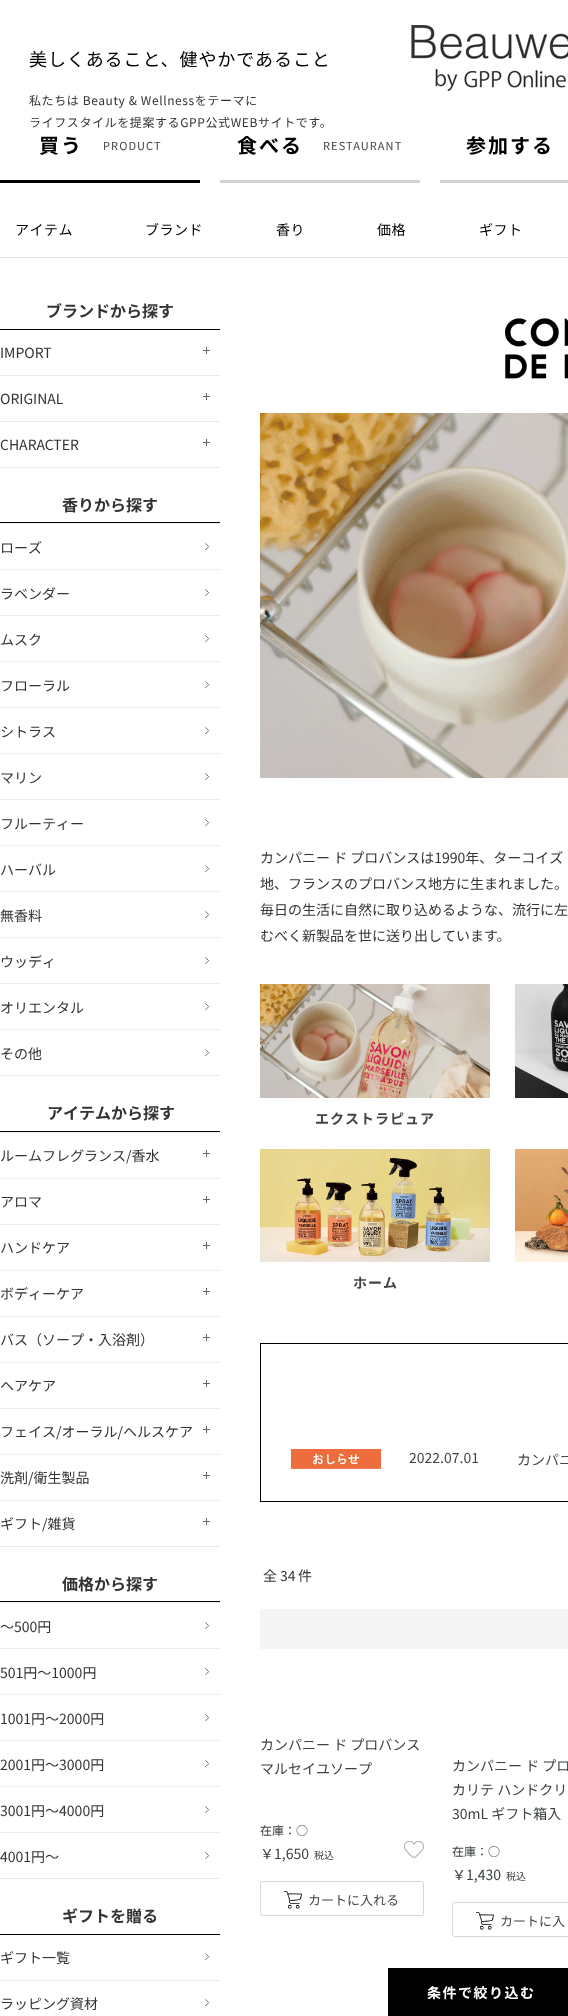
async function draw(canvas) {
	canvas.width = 568;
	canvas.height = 2016;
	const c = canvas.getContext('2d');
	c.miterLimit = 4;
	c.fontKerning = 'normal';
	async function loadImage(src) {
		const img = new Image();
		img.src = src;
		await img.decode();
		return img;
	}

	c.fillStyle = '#fff';
	c.fillRect(0, 0, 568, 2016);
	c.letterSpacing = '0.9px';
	c.font = '18px Noto Sans JP';
	c.fillStyle = '#000';
	c.fillText('美しくあること、健やかであること', 29, 66);
	c.letterSpacing = '0.6px';
	c.font = '12px Noto Sans JP';
	c.fillStyle = '#333';
	c.fillText('私たちは Beauty & Wellnessをテーマに', 29, 105);
	c.fillText('ライフスタイルを提案するGPP公式WEBサイトです。', 29, 127);
	c.drawImage(await loadImage('img1.png'), 411, 25, 157, 66);
	c.fillStyle = '#e5e5e5';
	c.fillRect(0, 257, 568, 1);
	c.fillStyle = '#000';
	c.fillRect(0, 180, 200, 3);
	c.letterSpacing = '2px';
	c.font = 'bold 20px Noto Sans JP';
	c.fillText('買う', 39, 153);
	c.letterSpacing = '1.1px';
	c.font = '11px Noto Sans JP';
	c.fillStyle = '#444';
	c.fillText('PRODUCT', 103, 150);
	c.fillStyle = '#d2d2d2';
	c.fillRect(220, 180, 200, 3);
	c.letterSpacing = '2px';
	c.font = 'bold 20px Noto Sans JP';
	c.fillStyle = '#000';
	c.fillText('食べる', 237, 153);
	c.letterSpacing = '1.1px';
	c.font = '11px Noto Sans JP';
	c.fillStyle = '#444';
	c.fillText('RESTAURANT', 323, 150);
	c.fillStyle = '#d2d2d2';
	c.fillRect(440, 180, 128, 3);
	c.letterSpacing = '2px';
	c.font = 'bold 20px Noto Sans JP';
	c.fillStyle = '#000';
	c.fillText('参加する', 466, 153);
	c.letterSpacing = '0.5px';
	c.font = '14px Noto Sans JP';
	for (const [text, x, y] of [
		['アイテム', 15, 235],
		['ブランド', 145, 235],
		['香り', 276, 235],
		['価格', 377, 235],
		['ギフト', 479, 235],
	]) {
		c.fillText(text, x, y);
	}
	c.fillRect(0, 329, 220, 1);
	c.letterSpacing = '0px';
	c.font = 'bold 16px Noto Sans JP';
	c.fillStyle = '#333';
	c.fillText('ブランドから探す', 46, 317);
	c.beginPath();
	c.moveTo(0, 375.5);
	c.lineTo(220, 375.5);
	c.strokeStyle = '#d5d5d5';
	c.setLineDash([1, 1]);
	c.stroke();
	c.font = '14px Noto Sans JP';
	c.fillText('IMPORT', 0, 358);
	c.fillStyle = '#666';
	c.fillRect(203, 350, 7, 1);
	c.fillRect(206, 347, 1, 7);
	c.beginPath();
	c.moveTo(0, 421.5);
	c.lineTo(220, 421.5);
	c.stroke();
	c.fillStyle = '#333';
	c.fillText('ORIGINAL', 0, 404);
	c.fillStyle = '#666';
	c.fillRect(203, 396, 7, 1);
	c.fillRect(206, 393, 1, 7);
	c.beginPath();
	c.moveTo(0, 467.5);
	c.lineTo(220, 467.5);
	c.stroke();
	c.fillStyle = '#333';
	c.fillText('CHARACTER', 0, 450);
	c.fillStyle = '#666';
	c.fillRect(203, 442, 7, 1);
	c.fillRect(206, 439, 1, 7);
	c.beginPath();
	c.moveTo(0, 1075.5);
	c.lineTo(220, 1075.5);
	c.stroke();
	c.fillStyle = '#000';
	c.fillRect(0, 522, 220, 1);
	c.font = 'bold 16px Noto Sans JP';
	c.fillStyle = '#333';
	c.fillText('香りから探す', 62, 511);
	c.fillStyle = '#eee';
	c.fillRect(0, 523, 220, 1);
	c.drawImage(await loadImage('img2.png'), 205, 543, 5, 7);
	c.font = '14px Noto Sans JP';
	c.fillStyle = '#333';
	c.fillText('ローズ', 0, 553);
	c.fillStyle = '#eee';
	c.fillRect(0, 569, 220, 1);
	c.drawImage(await loadImage('img2.png'), 205, 589, 5, 7);
	c.fillStyle = '#333';
	c.fillText('ラベンダー', 0, 599);
	c.fillStyle = '#eee';
	c.fillRect(0, 615, 220, 1);
	c.drawImage(await loadImage('img2.png'), 205, 635, 5, 7);
	c.fillStyle = '#333';
	c.fillText('ムスク', 0, 645);
	c.fillStyle = '#eee';
	c.fillRect(0, 661, 220, 1);
	c.drawImage(await loadImage('img2.png'), 205, 681, 5, 7);
	c.fillStyle = '#333';
	c.fillText('フローラル', 0, 691);
	c.fillStyle = '#eee';
	c.fillRect(0, 707, 220, 1);
	c.drawImage(await loadImage('img2.png'), 205, 727, 5, 7);
	c.fillStyle = '#333';
	c.fillText('シトラス', 0, 737);
	c.fillStyle = '#eee';
	c.fillRect(0, 753, 220, 1);
	c.drawImage(await loadImage('img2.png'), 205, 773, 5, 7);
	c.fillStyle = '#333';
	c.fillText('マリン', 0, 783);
	c.fillStyle = '#eee';
	c.fillRect(0, 799, 220, 1);
	c.drawImage(await loadImage('img2.png'), 205, 819, 5, 7);
	c.fillStyle = '#333';
	c.fillText('フルーティー', 0, 829);
	c.fillStyle = '#eee';
	c.fillRect(0, 845, 220, 1);
	c.drawImage(await loadImage('img2.png'), 205, 865, 5, 7);
	c.fillStyle = '#333';
	c.fillText('ハーバル', 0, 875);
	c.fillStyle = '#eee';
	c.fillRect(0, 891, 220, 1);
	c.drawImage(await loadImage('img2.png'), 205, 911, 5, 7);
	c.fillStyle = '#333';
	c.fillText('無香料', 0, 921);
	c.fillStyle = '#eee';
	c.fillRect(0, 937, 220, 1);
	c.drawImage(await loadImage('img2.png'), 205, 957, 5, 7);
	c.fillStyle = '#333';
	c.fillText('ウッディ', 0, 967);
	c.fillStyle = '#eee';
	c.fillRect(0, 983, 220, 1);
	c.drawImage(await loadImage('img2.png'), 205, 1003, 5, 7);
	c.fillStyle = '#333';
	c.fillText('オリエンタル', 0, 1013);
	c.fillStyle = '#eee';
	c.fillRect(0, 1029, 220, 1);
	c.drawImage(await loadImage('img2.png'), 205, 1049, 5, 7);
	c.fillStyle = '#333';
	c.fillText('その他', 0, 1059);
	c.beginPath();
	c.moveTo(0, 1546.5);
	c.lineTo(220, 1546.5);
	c.stroke();
	c.fillStyle = '#000';
	c.fillRect(0, 1131, 220, 1);
	c.font = 'bold 16px Noto Sans JP';
	c.fillStyle = '#333';
	c.fillText('アイテムから探す', 47, 1119);
	c.fillStyle = '#eee';
	c.fillRect(0, 1132, 220, 1);
	c.font = '14px Noto Sans JP';
	c.fillStyle = '#333';
	c.fillText('ルームフレグランス/香水', 0, 1161);
	for (const [x, y, w, h, color] of [
		[203, 1153, 7, 1, '#666'],
		[206, 1150, 1, 7, '#666'],
		[0, 1178, 220, 1, '#eee'],
	]) {
		c.fillStyle = color;
		c.fillRect(x, y, w, h);
	}
	c.fillStyle = '#333';
	c.fillText('アロマ', 0, 1207);
	for (const [x, y, w, h, color] of [
		[203, 1199, 7, 1, '#666'],
		[206, 1196, 1, 7, '#666'],
		[0, 1224, 220, 1, '#eee'],
	]) {
		c.fillStyle = color;
		c.fillRect(x, y, w, h);
	}
	c.fillStyle = '#333';
	c.fillText('ハンドケア', 0, 1253);
	for (const [x, y, w, h, color] of [
		[203, 1245, 7, 1, '#666'],
		[206, 1242, 1, 7, '#666'],
		[0, 1270, 220, 1, '#eee'],
	]) {
		c.fillStyle = color;
		c.fillRect(x, y, w, h);
	}
	c.fillStyle = '#333';
	c.fillText('ボディーケア', 0, 1299);
	for (const [x, y, w, h, color] of [
		[203, 1291, 7, 1, '#666'],
		[206, 1288, 1, 7, '#666'],
		[0, 1316, 220, 1, '#eee'],
	]) {
		c.fillStyle = color;
		c.fillRect(x, y, w, h);
	}
	c.fillStyle = '#333';
	c.fillText('バス（ソープ・入浴剤）', 0, 1345);
	for (const [x, y, w, h, color] of [
		[203, 1337, 7, 1, '#666'],
		[206, 1334, 1, 7, '#666'],
		[0, 1362, 220, 1, '#eee'],
	]) {
		c.fillStyle = color;
		c.fillRect(x, y, w, h);
	}
	c.fillStyle = '#333';
	c.fillText('ヘアケア', 0, 1391);
	for (const [x, y, w, h, color] of [
		[203, 1383, 7, 1, '#666'],
		[206, 1380, 1, 7, '#666'],
		[0, 1408, 220, 1, '#eee'],
	]) {
		c.fillStyle = color;
		c.fillRect(x, y, w, h);
	}
	c.fillStyle = '#333';
	c.fillText('フェイス/オーラル/ヘルスケア', 0, 1437);
	for (const [x, y, w, h, color] of [
		[203, 1429, 7, 1, '#666'],
		[206, 1426, 1, 7, '#666'],
		[0, 1454, 220, 1, '#eee'],
	]) {
		c.fillStyle = color;
		c.fillRect(x, y, w, h);
	}
	c.fillStyle = '#333';
	c.fillText('洗剤/衛生製品', 0, 1483);
	for (const [x, y, w, h, color] of [
		[203, 1475, 7, 1, '#666'],
		[206, 1472, 1, 7, '#666'],
		[0, 1500, 220, 1, '#eee'],
	]) {
		c.fillStyle = color;
		c.fillRect(x, y, w, h);
	}
	c.fillStyle = '#333';
	c.fillText('ギフト/雑貨', 0, 1529);
	c.fillStyle = '#666';
	c.fillRect(203, 1521, 7, 1);
	c.fillRect(206, 1518, 1, 7);
	c.beginPath();
	c.moveTo(0, 1878.5);
	c.lineTo(220, 1878.5);
	c.stroke();
	c.fillStyle = '#000';
	c.fillRect(0, 1601, 220, 1);
	c.font = 'bold 16px Noto Sans JP';
	c.fillStyle = '#333';
	c.fillText('価格から探す', 62, 1590);
	c.fillStyle = '#eee';
	c.fillRect(0, 1602, 220, 1);
	c.drawImage(await loadImage('img2.png'), 205, 1622, 5, 7);
	c.font = '14px Noto Sans JP';
	c.fillStyle = '#333';
	c.fillText('～500円', 0, 1632);
	c.fillStyle = '#eee';
	c.fillRect(0, 1648, 220, 1);
	c.drawImage(await loadImage('img2.png'), 205, 1668, 5, 7);
	c.fillStyle = '#333';
	c.fillText('501円～1000円', 0, 1678);
	c.fillStyle = '#eee';
	c.fillRect(0, 1694, 220, 1);
	c.drawImage(await loadImage('img2.png'), 205, 1714, 5, 7);
	c.fillStyle = '#333';
	c.fillText('1001円～2000円', 0, 1724);
	c.fillStyle = '#eee';
	c.fillRect(0, 1740, 220, 1);
	c.drawImage(await loadImage('img2.png'), 205, 1760, 5, 7);
	c.fillStyle = '#333';
	c.fillText('2001円～3000円', 0, 1770);
	c.fillStyle = '#eee';
	c.fillRect(0, 1786, 220, 1);
	c.drawImage(await loadImage('img2.png'), 205, 1806, 5, 7);
	c.fillStyle = '#333';
	c.fillText('3001円～4000円', 0, 1816);
	c.fillStyle = '#eee';
	c.fillRect(0, 1832, 220, 1);
	c.drawImage(await loadImage('img2.png'), 205, 1852, 5, 7);
	c.fillStyle = '#333';
	c.fillText('4001円～', 0, 1862);
	c.fillStyle = '#000';
	c.fillRect(0, 1934, 220, 1);
	c.font = 'bold 16px Noto Sans JP';
	c.fillStyle = '#333';
	c.fillText('ギフトを贈る', 62, 1922);
	c.beginPath();
	c.moveTo(0, 1980.5);
	c.lineTo(220, 1980.5);
	c.stroke();
	c.drawImage(await loadImage('img2.png'), 205, 1953, 5, 7);
	c.font = '14px Noto Sans JP';
	c.fillText('ギフト一覧', 0, 1963);
	c.drawImage(await loadImage('img2.png'), 205, 1999, 5, 7);
	c.fillText('ラッピング資材', 0, 2009);
	c.fillStyle = '#000';
	c.fillRect(388, 1968, 180, 48);
	c.letterSpacing = '1.5px';
	c.font = 'bold 14px Noto Sans JP';
	c.fillStyle = '#fff';
	c.fillText('条件で絞り込む', 427, 1998);
	c.drawImage(await loadImage('img3.png'), 505, 318, 63, 61);
	c.drawImage(await loadImage('img4.png'), 260, 413, 308, 365);
	c.letterSpacing = '0px';
	c.font = '14px Noto Sans JP';
	c.fillStyle = '#333';
	for (const [text, x, y] of [
		['カンパニー ド プロバンスは1990年、ターコイズ', 260, 863],
		['地、フランスのプロバンス地方に生まれました。', 260, 889],
		['毎日の生活に自然に取り込めるような、流行に左', 260, 915],
		['むべく新製品を世に送り出しています。', 260, 941],
	]) {
		c.fillText(text, x, y);
	}
	c.drawImage(await loadImage('img5.png'), 515, 984, 53, 114);
	c.drawImage(await loadImage('img6.png'), 260, 984, 230, 114);
	c.letterSpacing = '1px';
	c.font = 'bold 14px Noto Sans JP';
	c.fillStyle = '#444';
	c.fillText('エクストラピュア', 315, 1124);
	c.drawImage(await loadImage('img7.png'), 515, 1149, 53, 113);
	c.drawImage(await loadImage('img8.png'), 260, 1149, 230, 113);
	c.fillText('ホーム', 353, 1288);
	c.strokeStyle = '#000';
	c.setLineDash([]);
	c.strokeRect(260.5, 1343.5, 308, 158);
	c.drawImage(await loadImage('img9.png'), 291, 1449, 90, 20);
	c.letterSpacing = '0px';
	c.font = '14px Noto Sans JP';
	c.fillText('2022.07.01', 409, 1463);
	c.fillText('カンパニ', 517, 1465);
	c.fillStyle = '#333';
	for (const [text, x, y] of [
		['全', 263, 1581],
		['34', 280, 1581],
		['件', 298, 1581],
	]) {
		c.fillText(text, x, y);
	}
	c.fillStyle = '#f5f5f5';
	c.fillRect(260, 1609, 308, 40);
	c.fillStyle = '#3b4043';
	c.fillText('カンパニー ド プロバンス', 260, 1750);
	c.fillText('マルセイユソープ', 260, 1774);
	c.font = '12px Noto Sans JP';
	c.fillText('在庫：○', 260, 1835);
	c.font = '14px Noto Sans JP';
	c.fillText('￥1,650', 260, 1859);
	c.font = '10px Noto Sans JP';
	c.fillText('税込', 314, 1859);
	c.drawImage(await loadImage('img10.png'), 404, 1841, 20, 17);
	c.beginPath();
	c.roundRect(260.5, 1881.5, 163, 34, 2.5);
	c.strokeStyle = '#d5d5d5';
	c.stroke();
	c.drawImage(await loadImage('img11.png'), 284, 1891, 18, 18);
	c.font = '13px Noto Sans JP';
	c.fillStyle = '#444';
	c.fillText('カートに入れる', 308, 1905);
	c.font = '14px Noto Sans JP';
	c.fillStyle = '#3b4043';
	for (const [text, x, y] of [
		['カンパニー ド プロ', 452, 1771],
		['カリテ ハンドクリ', 452, 1795],
		['30mL ギフト箱入', 452, 1819],
	]) {
		c.fillText(text, x, y);
	}
	c.font = '12px Noto Sans JP';
	c.fillText('在庫：○', 452, 1856);
	c.font = '14px Noto Sans JP';
	c.fillText('￥1,430', 452, 1880);
	c.font = '10px Noto Sans JP';
	c.fillText('税込', 506, 1880);
	c.beginPath();
	c.roundRect(452.5, 1902.5, 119, 34, 2.5);
	c.stroke();
	c.drawImage(await loadImage('img11.png'), 476, 1912, 18, 18);
	c.font = '13px Noto Sans JP';
	c.fillStyle = '#444';
	c.fillText('カートに入', 500, 1926);
}

draw(document.querySelector('canvas'));
